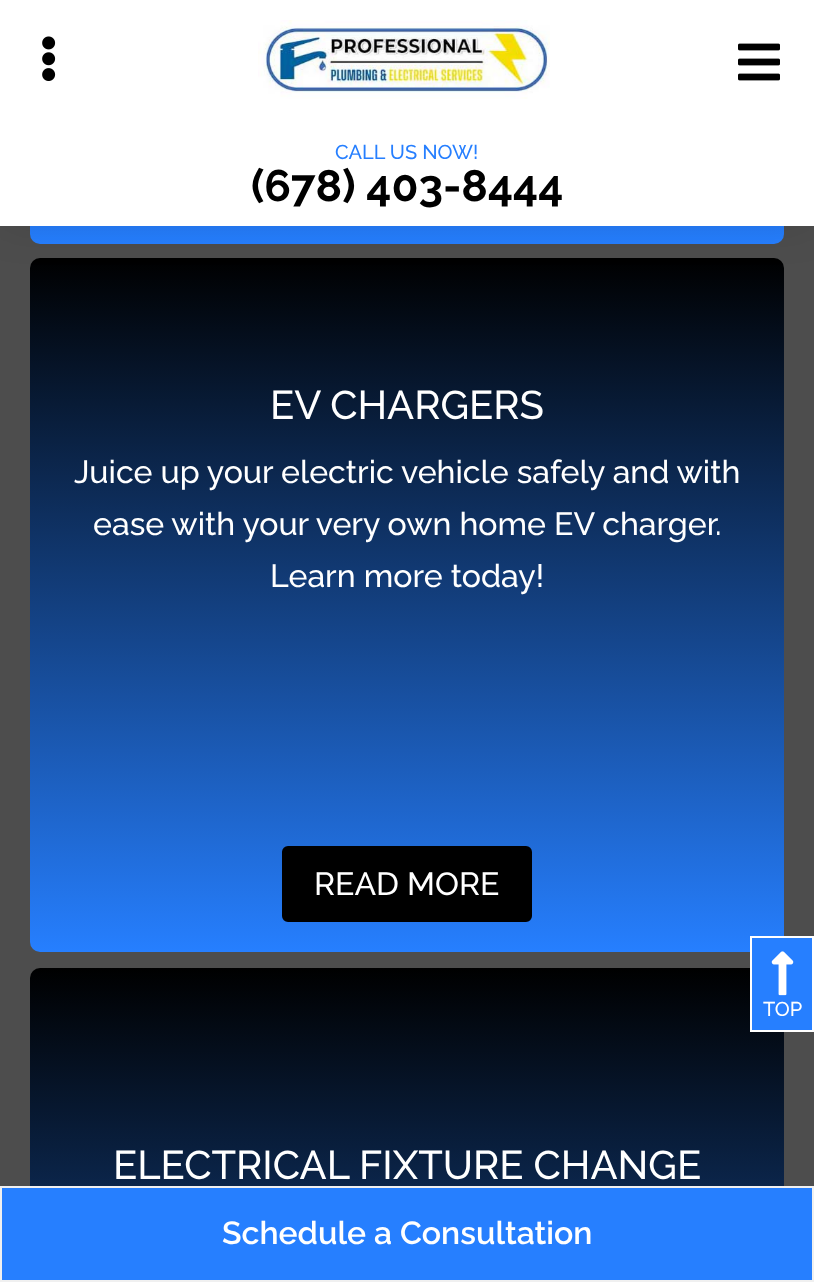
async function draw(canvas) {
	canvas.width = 814;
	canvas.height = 1282;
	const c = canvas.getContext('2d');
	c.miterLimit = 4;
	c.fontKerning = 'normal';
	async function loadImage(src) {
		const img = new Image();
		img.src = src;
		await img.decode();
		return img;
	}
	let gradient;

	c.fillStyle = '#4d4d4d';
	c.fillRect(0, 0, 814, 1282);
	gradient = c.createLinearGradient(407, -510, 407, 244);
	gradient.addColorStop(0, '#000');
	gradient.addColorStop(1, '#267fff');
	c.fillStyle = gradient;
	c.beginPath();
	c.roundRect(30, -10, 754, 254, 10);
	c.fill();
	gradient = c.createLinearGradient(407, 258, 407, 952);
	gradient.addColorStop(0, '#000');
	gradient.addColorStop(1, '#267fff');
	c.fillStyle = gradient;
	c.beginPath();
	c.roundRect(30, 258, 754, 694, 10);
	c.fill();
	c.fillStyle = '#0000001a';
	c.filter = 'blur(20px)';
	c.beginPath();
	c.rect(0, 0, 814, 226);
	c.fill();
	c.filter = 'none';
	c.fillStyle = '#fff';
	c.fillRect(0, 0, 814, 226);
	c.drawImage(await loadImage('img1.png'), 42, 36, 14, 45);
	c.drawImage(await loadImage('img2.png'), 738, 43, 42, 38);
	c.drawImage(await loadImage('img3.png'), 258, 20, 292, 79);
	c.font = '500 20px Raleway';
	c.fillStyle = '#267fff';
	c.fillText('CALL US NOW!', 335, 159);
	c.font = 'bold 44px Raleway';
	c.fillStyle = '#000';
	c.fillText('(678) 403-8444', 251, 201);
	c.font = '500 40px Raleway';
	c.fillStyle = '#fff';
	c.fillText('EV CHARGERS', 270, 419);
	c.font = '500 32px Raleway';
	for (const [text, x, y] of [
		['Juice up your electric vehicle safely and with', 74, 483],
		['ease with your very own home EV charger.', 93, 535],
		['Learn more today!', 270, 587],
	]) {
		c.fillText(text, x, y);
	}
	c.fillStyle = '#000';
	c.beginPath();
	c.roundRect(283, 847, 248, 74, 5);
	c.fill();
	c.strokeStyle = '#000';
	c.lineWidth = 2;
	c.stroke();
	c.fillStyle = '#fff';
	c.fillText('READ MORE', 314, 895);
	gradient = c.createLinearGradient(407, 968, 407, 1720);
	gradient.addColorStop(0, '#000');
	gradient.addColorStop(1, '#267fff');
	c.fillStyle = gradient;
	c.beginPath();
	c.roundRect(30, 968, 754, 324, 10);
	c.fill();
	c.font = '500 40px Raleway';
	c.fillStyle = '#fff';
	c.fillText('ELECTRICAL FIXTURE CHANGE', 113, 1179);
	c.fillStyle = '#267fff';
	c.beginPath();
	c.rect(1, 1187, 812, 94);
	c.fill();
	c.strokeStyle = '#f0f0f0';
	c.stroke();
	c.font = '600 32px Raleway';
	c.fillStyle = '#fff';
	c.fillText('Schedule a Consultation', 222, 1244);
	c.fillStyle = '#267fff';
	c.beginPath();
	c.rect(751, 937, 62, 94);
	c.fill();
	c.strokeStyle = '#fff';
	c.stroke();
	c.drawImage(await loadImage('img4.png'), 771, 951, 23, 45);
	c.font = '500 20px Raleway';
	c.fillStyle = '#fff';
	c.fillText('TOP', 763, 1016);
}

draw(document.querySelector('canvas'));
